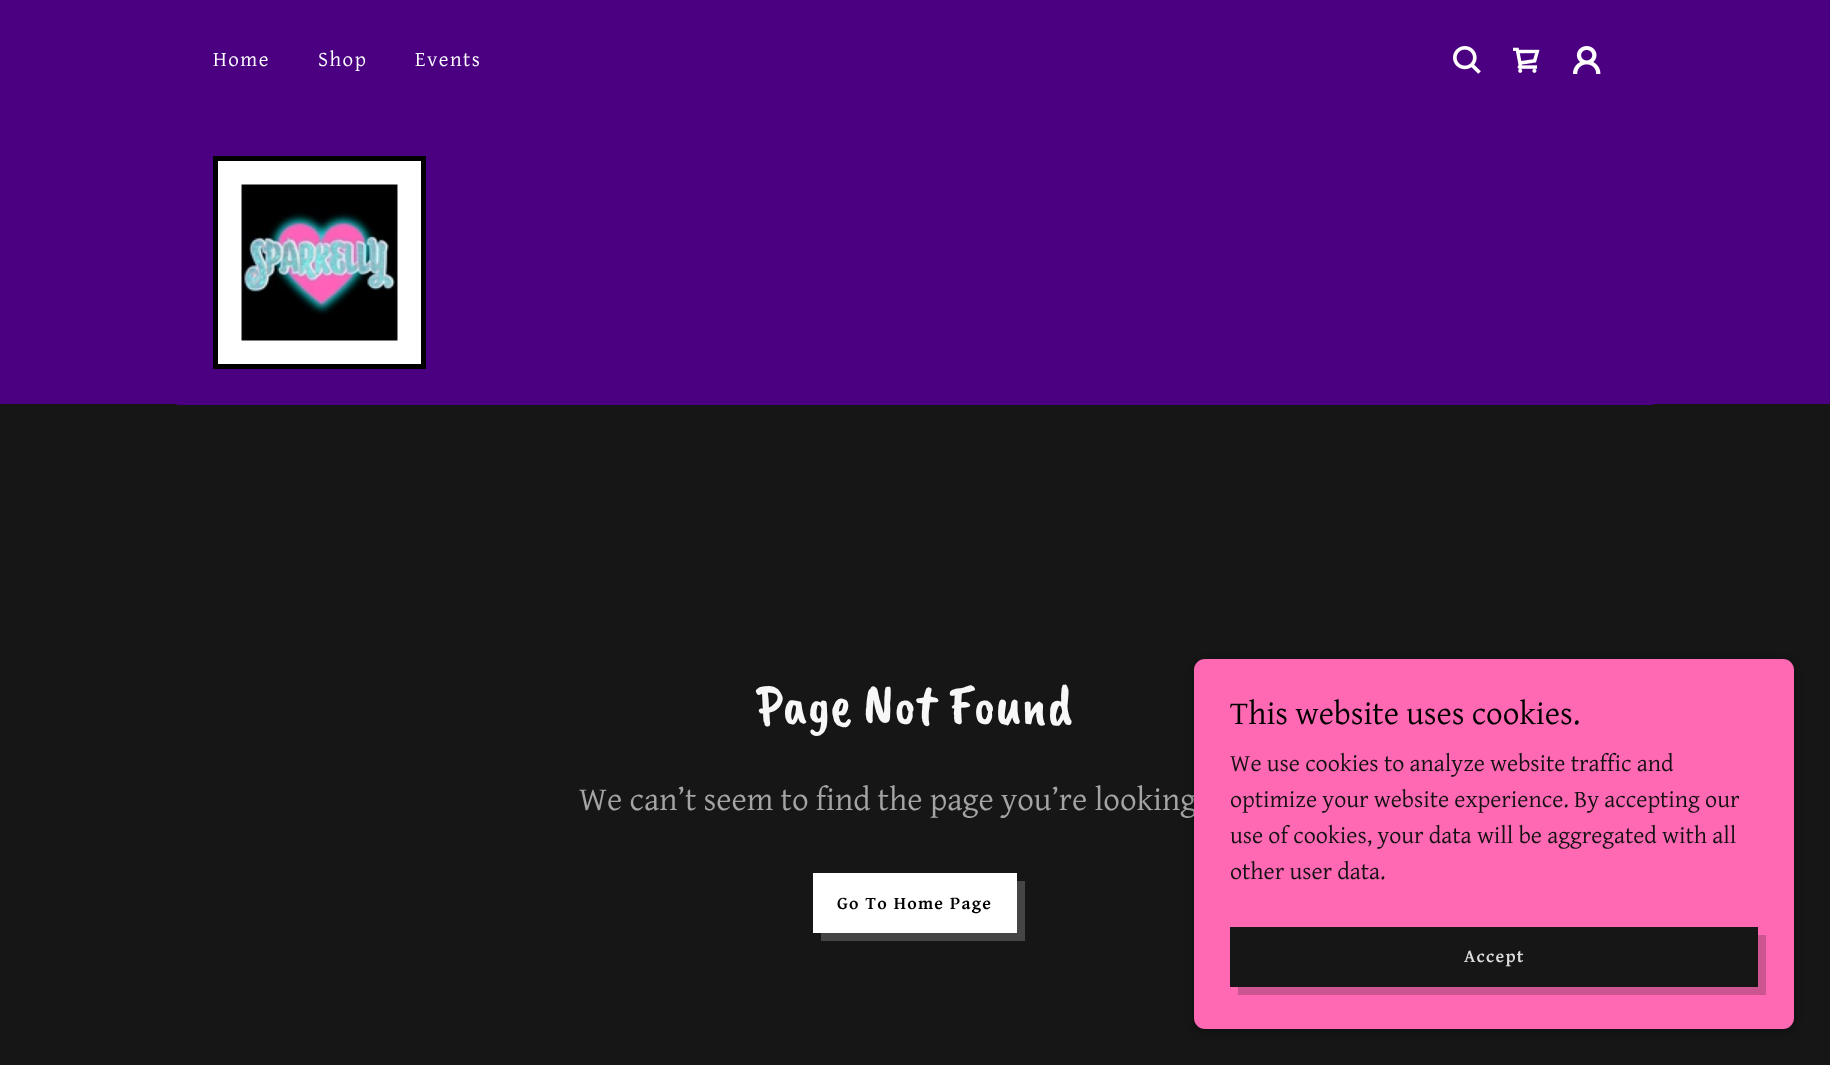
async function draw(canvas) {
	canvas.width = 1830;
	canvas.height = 1065;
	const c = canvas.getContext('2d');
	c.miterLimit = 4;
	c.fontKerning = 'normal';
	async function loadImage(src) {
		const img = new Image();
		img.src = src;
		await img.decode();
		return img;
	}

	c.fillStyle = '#4b0082';
	c.fillRect(0, 0, 1830, 1065);
	c.letterSpacing = '1.5px';
	c.font = '21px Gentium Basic';
	c.fillStyle = '#fff';
	for (const [text, x, y] of [
		['Home', 213, 66],
		['Shop', 318, 66],
		['Events', 415, 66],
	]) {
		c.fillText(text, x, y);
	}
	c.drawImage(await loadImage('img1.png'), 1453, 46, 28, 28);
	c.drawImage(await loadImage('img2.png'), 1513, 47, 27, 26);
	c.drawImage(await loadImage('img3.png'), 1573, 46, 28, 28);
	c.fillStyle = '#161616';
	c.fillRect(0, 404, 1830, 661);
	c.fillStyle = '#4b0082';
	c.fillRect(177, 404, 1476, 1);
	c.fillStyle = '#fff';
	c.beginPath();
	c.rect(215.5, 158.5, 208, 208);
	c.fill();
	c.strokeStyle = '#000';
	c.lineWidth = 5;
	c.stroke();
	c.drawImage(await loadImage('img4.png'), 241, 184, 157, 157);
	c.letterSpacing = '0px';
	c.font = '57px Caveat Brush';
	c.fillStyle = '#f7f7f7';
	c.fillText('Page Not Found', 756, 724);
	c.font = '33px Gentium Basic';
	c.fillStyle = '#a4a4a4';
	c.fillText('We can’t seem to find the page you’re looking', 579, 810);
	c.fillStyle = '#fff';
	c.fillRect(813, 873, 204, 60);
	c.fillStyle = '#454545';
	c.beginPath();
	c.moveTo(821, 933);
	c.lineTo(821, 941);
	c.lineTo(1025, 941);
	c.lineTo(1025, 881);
	c.lineTo(1017, 881);
	c.lineTo(1017, 933);
	c.closePath();
	c.fill();
	c.letterSpacing = '1.25px';
	c.font = 'bold 18px Gentium Basic';
	c.fillStyle = '#000';
	c.fillText('Go To Home Page', 837, 909);
	c.fillStyle = '#0000004d';
	c.filter = 'blur(4.5px)';
	c.beginPath();
	c.roundRect(1194, 662, 600, 370, 11);
	c.fill();
	c.filter = 'none';
	c.fillStyle = '#ff69b4';
	c.beginPath();
	c.roundRect(1194, 659, 600, 370, 11);
	c.fill();
	c.letterSpacing = '0px';
	c.font = '33px Gentium Basic';
	c.fillStyle = '#000';
	c.fillText('This website uses cookies.', 1230, 724);
	c.font = '24px Gentium Basic';
	c.fillStyle = '#151113';
	for (const [text, x, y] of [
		['We use cookies to analyze website traffic and', 1230, 771],
		['optimize your website experience. By accepting our', 1230, 807],
		['use of cookies, your data will be aggregated with all', 1230, 843],
		['other user data.', 1230, 879],
	]) {
		c.fillText(text, x, y);
	}
	c.fillStyle = '#161616';
	c.fillRect(1230, 927, 528, 60);
	c.fillStyle = '#cc5490';
	c.beginPath();
	c.moveTo(1238, 987);
	c.lineTo(1238, 995);
	c.lineTo(1766, 995);
	c.lineTo(1766, 935);
	c.lineTo(1758, 935);
	c.lineTo(1758, 987);
	c.closePath();
	c.fill();
	c.letterSpacing = '1.25px';
	c.font = 'bold 18px Gentium Basic';
	c.fillStyle = '#dbdbdb';
	c.fillText('Accept', 1464, 962);
}

draw(document.querySelector('canvas'));
